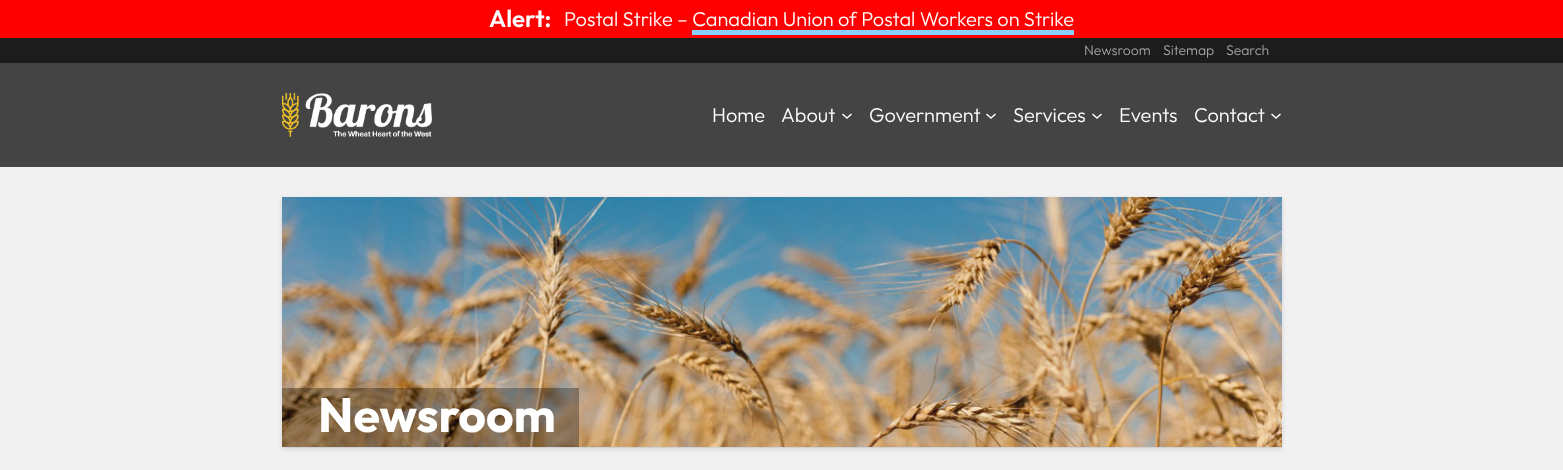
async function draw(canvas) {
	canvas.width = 1563;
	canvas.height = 470;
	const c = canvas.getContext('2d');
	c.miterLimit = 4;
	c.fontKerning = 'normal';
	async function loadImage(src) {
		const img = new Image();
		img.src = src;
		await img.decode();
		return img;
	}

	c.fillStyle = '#f1f1f1';
	c.fillRect(0, 0, 1563, 470);
	c.fillStyle = '#f00';
	c.fillRect(0, 0, 1563, 38);
	c.font = '600 24px Outfit';
	c.fillStyle = '#fff';
	c.fillText('Alert:', 489, 27);
	c.font = '300 20px Outfit';
	c.fillText('Postal Strike – Canadian Union of Postal Workers on Strike', 564, 26);
	c.fillStyle = '#87cefa';
	c.fillRect(692, 30, 382, 5);
	c.fillStyle = '#1c1c1c';
	c.fillRect(0, 38, 1563, 25);
	c.font = '300 14px Outfit';
	c.fillStyle = '#a4a4a4';
	for (const [text, x, y] of [
		['Newsroom', 1084, 55],
		['Sitemap', 1163, 55],
		['Search', 1226, 55],
	]) {
		c.fillText(text, x, y);
	}
	c.fillStyle = '#444';
	c.fillRect(0, 63, 1563, 104);
	c.drawImage(await loadImage('img1.png'), 282, 93, 150, 44);
	c.font = '300 20px Outfit';
	c.fillStyle = '#fff';
	c.fillText('Home', 712, 122);
	c.fillText('About', 781, 122);
	c.beginPath();
	c.moveTo(842.5, 114);
	c.lineTo(847, 118);
	c.lineTo(851.5, 114);
	c.strokeStyle = '#fff';
	c.lineWidth = 1.5;
	c.stroke();
	c.fillText('Government', 869, 122);
	c.beginPath();
	c.moveTo(986.5, 114);
	c.lineTo(991, 118);
	c.lineTo(995.5, 114);
	c.stroke();
	c.fillText('Services', 1013, 122);
	c.beginPath();
	c.moveTo(1092.5, 114);
	c.lineTo(1097, 118);
	c.lineTo(1101.5, 114);
	c.stroke();
	c.fillText('Events', 1119, 122);
	c.fillText('Contact', 1194, 122);
	c.beginPath();
	c.moveTo(1271.5, 114);
	c.lineTo(1276, 118);
	c.lineTo(1280.5, 114);
	c.stroke();
	c.fillStyle = '#0000000d';
	c.filter = 'blur(0.5px)';
	c.beginPath();
	c.rect(282, 198, 1000, 250);
	c.fill();
	c.filter = 'none';
	c.fillStyle = '#32326926';
	c.filter = 'blur(2.5px)';
	c.beginPath();
	c.rect(282, 199, 1000, 250);
	c.fill();
	c.filter = 'none';
	c.drawImage(await loadImage('img2.png'), 282, 197, 1000, 250);
	c.fillStyle = '#0000004d';
	c.fillRect(282, 388, 297, 59);
	c.font = 'bold 48px Outfit';
	c.fillStyle = '#fff';
	c.fillText('Newsroom', 318, 432);
}

draw(document.querySelector('canvas'));
